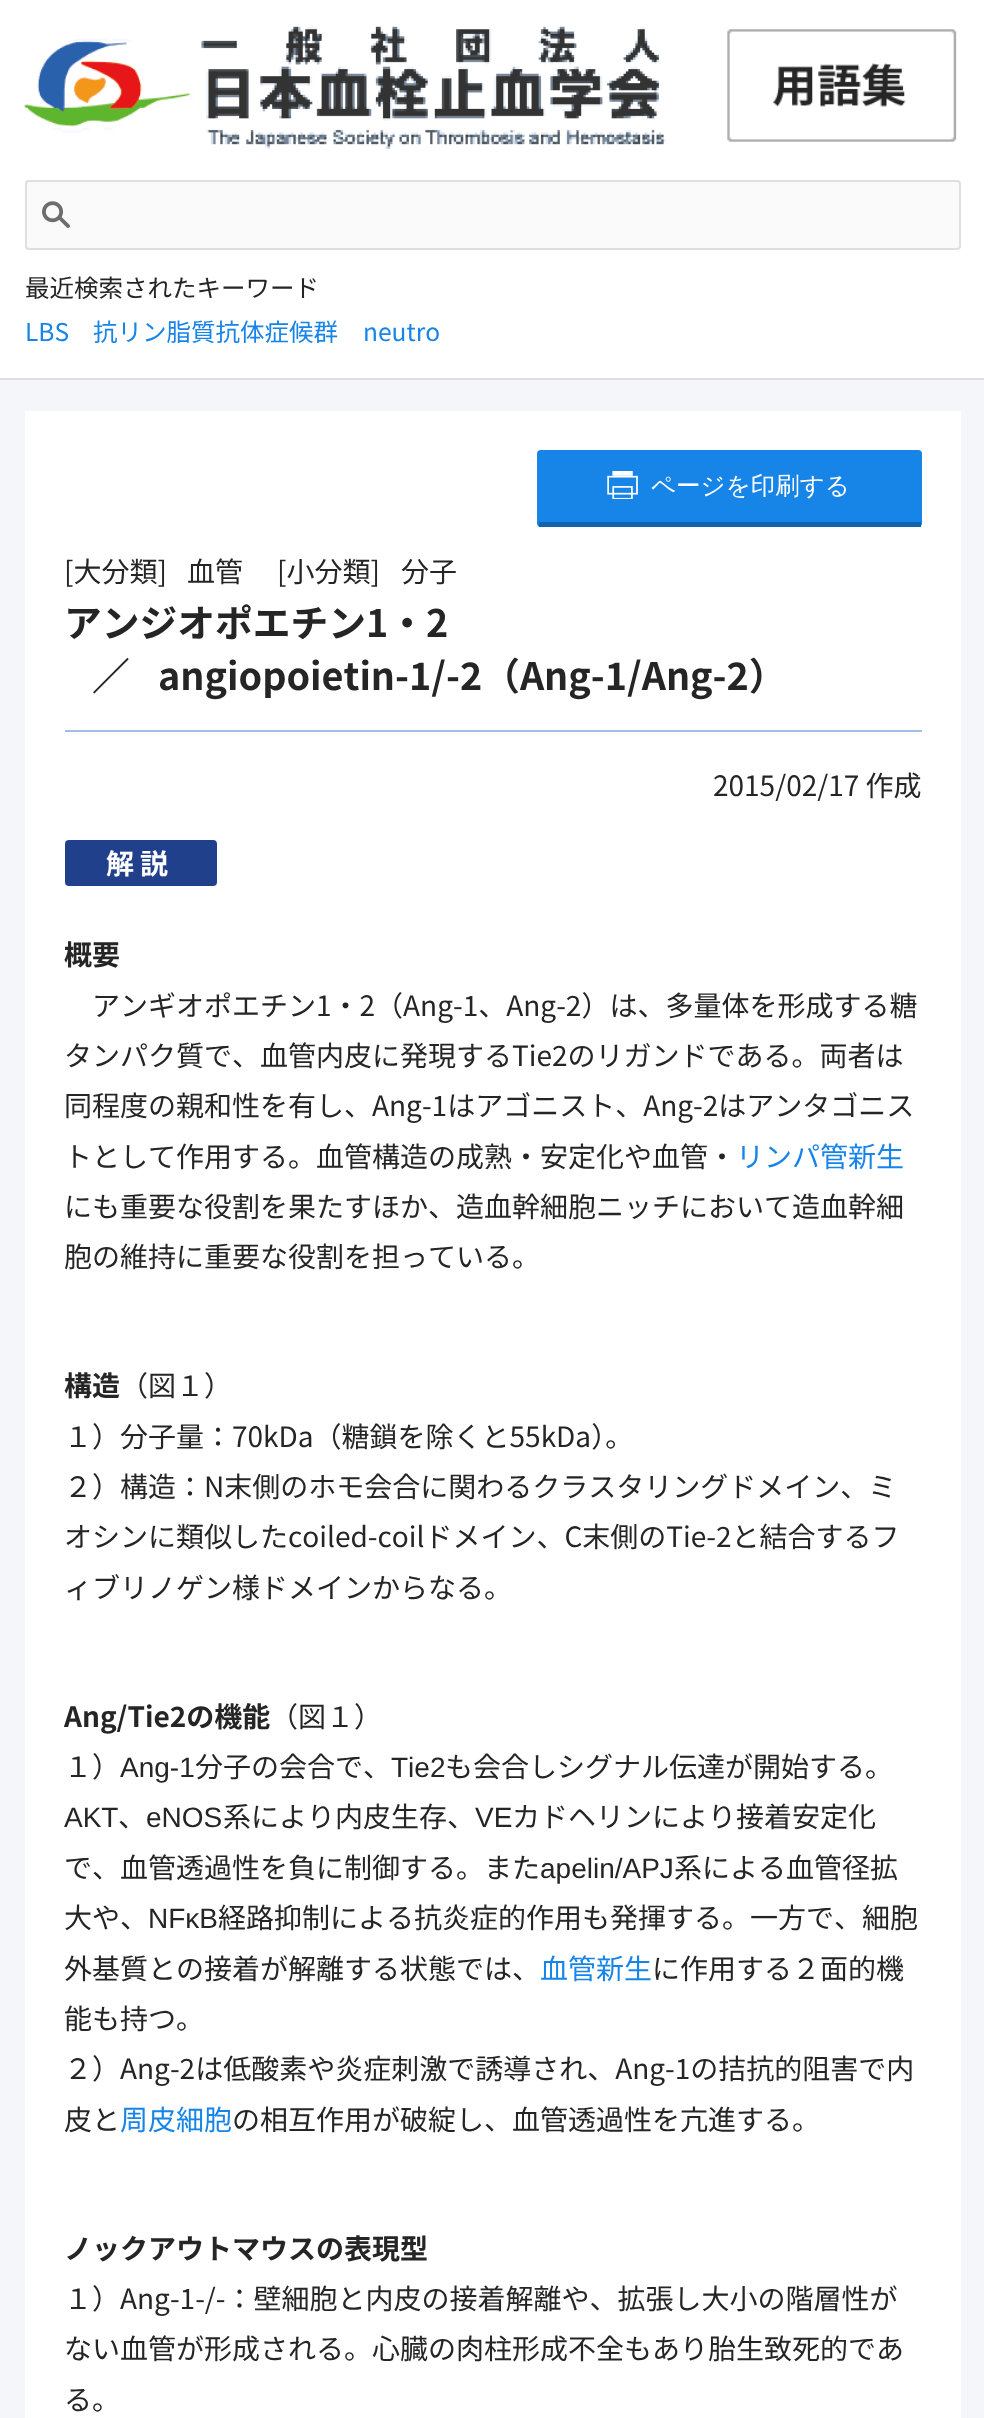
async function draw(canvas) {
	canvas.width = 984;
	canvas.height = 2418;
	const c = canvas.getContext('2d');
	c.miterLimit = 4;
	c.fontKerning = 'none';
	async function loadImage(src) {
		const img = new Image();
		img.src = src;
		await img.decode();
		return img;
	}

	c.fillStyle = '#f5f6f9';
	c.fillRect(0, 0, 984, 2418);
	c.fillStyle = '#fff';
	c.fillRect(0, 0, 984, 378);
	c.fillStyle = '#dedfe2';
	c.fillRect(0, 378, 984, 2);
	c.drawImage(await loadImage('img1.png'), 24, 26, 933, 123);
	c.fillStyle = '#fafafa';
	c.beginPath();
	c.roundRect(25, 180, 936, 70, 4);
	c.fill();
	c.drawImage(await loadImage('img2.png'), 42, 201, 28, 27);
	c.beginPath();
	c.roundRect(26, 181, 934, 68, 3);
	c.strokeStyle = '#dedfe2';
	c.lineWidth = 2;
	c.stroke();
	c.font = '24.5px Noto Sans JP';
	c.fillStyle = '#252525';
	c.fillText('最近検索されたキーワード', 25, 297);
	c.fillStyle = '#1784e8';
	for (const [text, x, y] of [
		['LBS', 25, 341],
		['抗リン脂質抗体症候群', 93, 341],
		['neutro', 363, 341],
	]) {
		c.fillText(text, x, y);
	}
	c.fillStyle = '#fff';
	c.fillRect(25, 411, 936, 2007);
	c.fillStyle = '#a3bee6';
	c.fillRect(65, 730, 857, 2);
	c.fillStyle = '#1784e8';
	c.beginPath();
	c.roundRect(537, 450, 385, 77, 4);
	c.fill();
	c.fillStyle = '#1163ae';
	c.fillRect(539, 522, 382, 5);
	c.drawImage(await loadImage('img3.png'), 607, 471, 31, 28);
	c.font = '500 24.5px WenQuanYi Zen Hei';
	c.fillStyle = '#fff';
	c.fillText('ページを印刷する', 651, 494);
	c.font = '28px Noto Sans JP';
	c.fillStyle = '#252525';
	for (const [text, x, y] of [
		['[大分類]', 64, 582],
		['血管', 187, 582],
		['[小分類]', 277, 582],
		['分子', 401, 582],
	]) {
		c.fillText(text, x, y);
	}
	c.font = 'bold 37.75px Noto Sans JP';
	for (const [text, x, y] of [
		['アンジオポエチン1・2', 64, 637],
		['／', 92, 690],
		['angiopoietin-1/-2（Ang-1/Ang-2）', 158, 690],
	]) {
		c.fillText(text, x, y);
	}
	c.font = '28px Noto Sans JP';
	c.fillText('2015/02/17 作成', 713, 796);
	c.fillStyle = '#20408c';
	c.beginPath();
	c.roundRect(65, 840, 152, 46, 4);
	c.fill();
	c.letterSpacing = '6px';
	c.font = 'bold 28px Noto Sans JP';
	c.fillStyle = '#fff';
	c.fillText('解説', 106, 874);
	c.letterSpacing = '0px';
	c.fillStyle = '#252525';
	c.fillText('概要', 64, 965);
	c.font = '28px Noto Sans JP';
	for (const [text, x, y] of [
		['アンギオポエチン1・2（Ang-1、Ang-2）は、多量体を形成する糖', 92, 1016],
		['タンパク質で、血管内皮に発現するTie2のリガンドである。両者は', 64, 1066],
		['同程度の親和性を有し、Ang-1はアゴニスト、Ang-2はアンタゴニス', 64, 1116],
		['トとして作用する。血管構造の成熟・安定化や血管・', 64, 1167],
	]) {
		c.fillText(text, x, y);
	}
	c.fillStyle = '#1784e8';
	c.fillText('リンパ管新生', 736, 1167);
	c.fillStyle = '#252525';
	c.fillText('にも重要な役割を果たすほか、造血幹細胞ニッチにおいて造血幹細', 64, 1217);
	c.fillText('胞の維持に重要な役割を担っている。', 64, 1267);
	c.font = 'bold 28px Noto Sans JP';
	c.fillText('構造', 64, 1396);
	c.font = '28px Noto Sans JP';
	for (const [text, x, y] of [
		['（図１）', 120, 1396],
		['１）分子量：70kDa（糖鎖を除くと55kDa）。', 64, 1447],
		['２）構造：N末側のホモ会合に関わるクラスタリングドメイン、ミ', 64, 1497],
		['オシンに類似したcoiled-coilドメイン、C末側のTie-2と結合するフ', 64, 1547],
		['ィブリノゲン様ドメインからなる。', 64, 1598],
	]) {
		c.fillText(text, x, y);
	}
	c.font = 'bold 28px Noto Sans JP';
	c.fillText('Ang/Tie2の機能', 64, 1727);
	c.font = '28px Noto Sans JP';
	c.fillText('（図１）', 270, 1727);
	c.fillText('１）', 64, 1777);
	c.font = '28px Liberation Sans';
	c.fillText('Ang-1', 120, 1777);
	c.font = '28px Noto Sans JP';
	c.fillText('分子の会合で、', 195, 1777);
	c.font = '28px Liberation Sans';
	c.fillText('Tie2', 391, 1777);
	c.font = '28px Noto Sans JP';
	c.fillText('も会合しシグナル伝達が開始する。', 445, 1777);
	c.font = '28px Liberation Sans';
	c.fillText('AKT', 64, 1827);
	c.font = '28px Noto Sans JP';
	c.fillText('、', 118, 1827);
	c.font = '28px Liberation Sans';
	c.fillText('eNOS', 146, 1827);
	c.font = '28px Noto Sans JP';
	c.fillText('系により内皮生存、', 223, 1827);
	c.font = '28px Liberation Sans';
	c.fillText('VE', 475, 1827);
	c.font = '28px Noto Sans JP';
	c.fillText('カドヘリンにより接着安定化', 512, 1827);
	c.fillText('で、血管透過性を負に制御する。また', 64, 1878);
	c.font = '28px Liberation Sans';
	c.fillText('apelin/APJ', 540, 1878);
	c.font = '28px Noto Sans JP';
	c.fillText('系による血管径拡', 674, 1878);
	c.fillText('大や、', 64, 1928);
	c.font = '28px Liberation Sans';
	c.fillText('NFκB', 148, 1928);
	c.font = '28px Noto Sans JP';
	c.fillText('経路抑制による抗炎症的作用も発揮する。一方で、細胞', 218, 1928);
	c.fillText('外基質との接着が解離する状態では、', 64, 1979);
	c.fillStyle = '#1784e8';
	c.fillText('血管新生', 540, 1979);
	c.fillStyle = '#252525';
	for (const [text, x, y] of [
		['に作用する２面的機', 652, 1979],
		['能も持つ。', 64, 2029],
		['２）Ang-2は低酸素や炎症刺激で誘導され、Ang-1の拮抗的阻害で内', 64, 2079],
		['皮と', 64, 2130],
	]) {
		c.fillText(text, x, y);
	}
	c.fillStyle = '#1784e8';
	c.fillText('周皮細胞', 120, 2130);
	c.fillStyle = '#252525';
	c.fillText('の相互作用が破綻し、血管透過性を亢進する。', 232, 2130);
	c.font = 'bold 28px Noto Sans JP';
	c.fillText('ノックアウトマウスの表現型', 64, 2259);
	c.font = '28px Noto Sans JP';
	for (const [text, x, y] of [
		['１）Ang-1-/-：壁細胞と内皮の接着解離や、拡張し大小の階層性が', 64, 2309],
		['ない血管が形成される。心臓の肉柱形成不全もあり胎生致死的であ', 64, 2359],
		['る。', 64, 2410],
	]) {
		c.fillText(text, x, y);
	}
}

draw(document.querySelector('canvas'));
